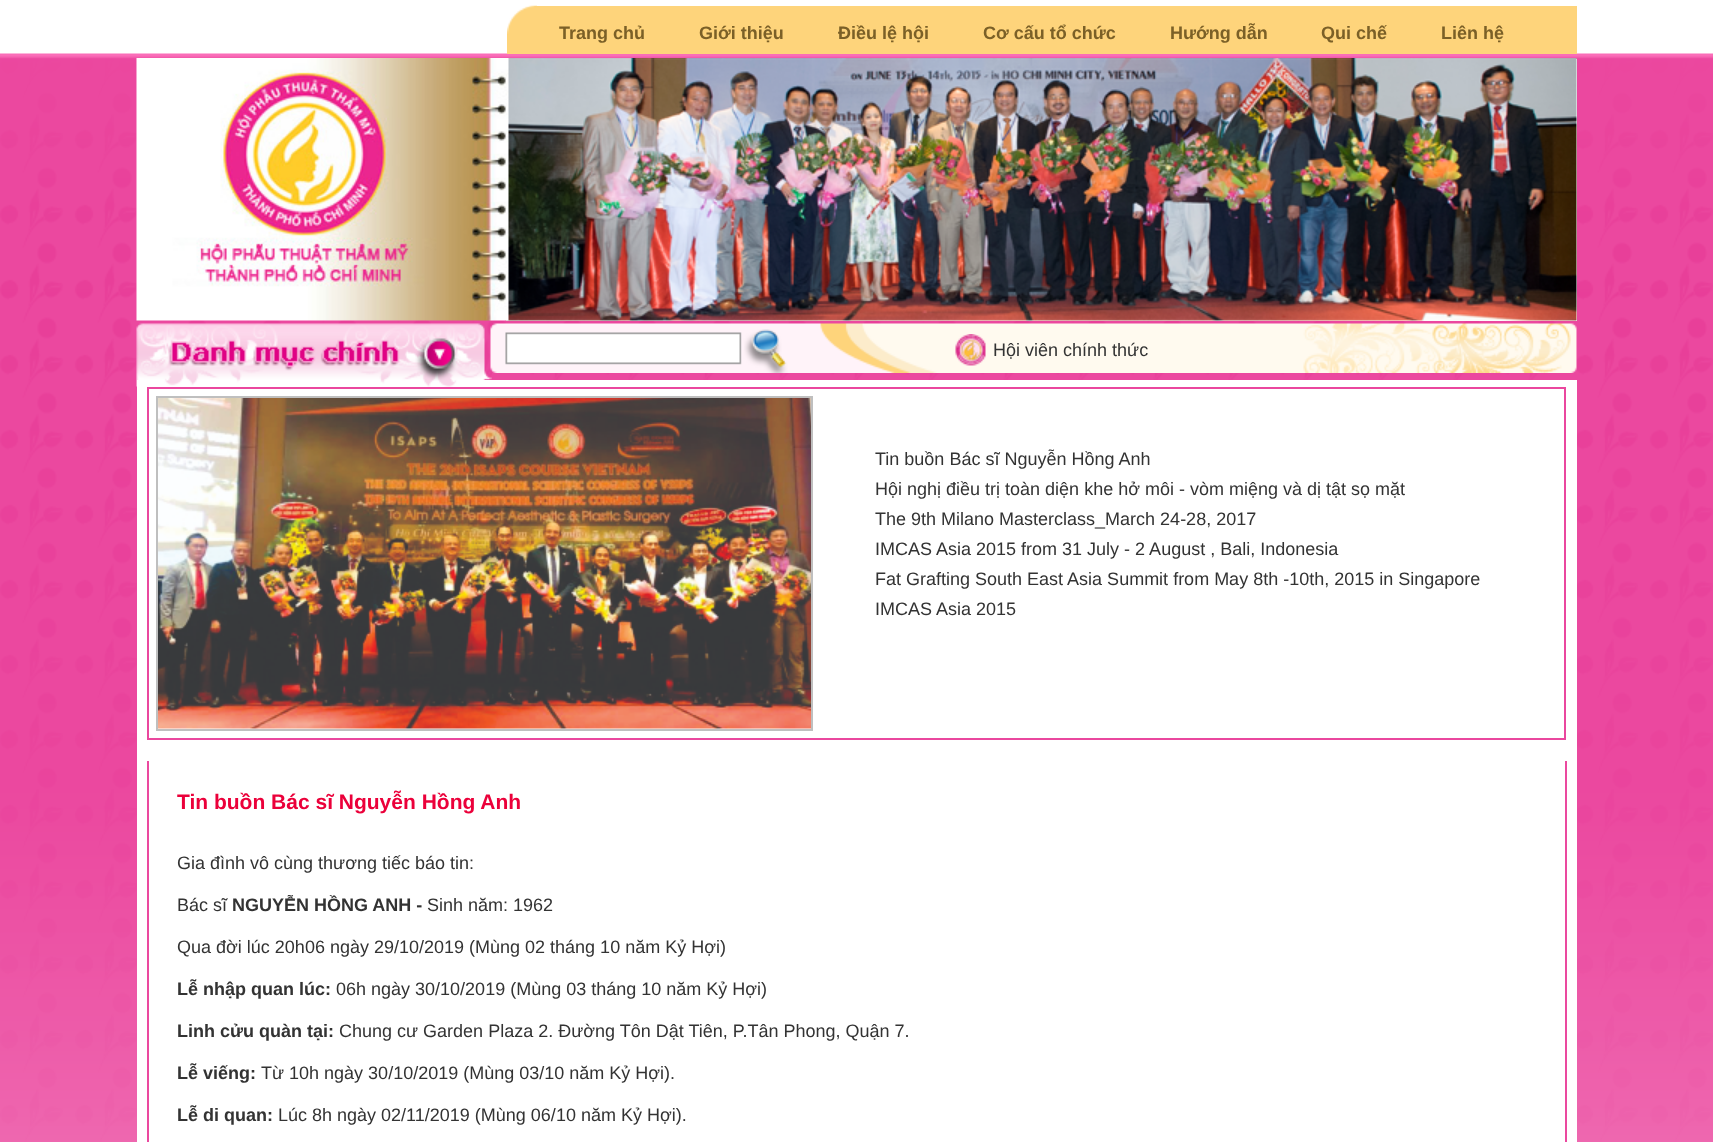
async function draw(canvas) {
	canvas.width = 1713;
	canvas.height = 1142;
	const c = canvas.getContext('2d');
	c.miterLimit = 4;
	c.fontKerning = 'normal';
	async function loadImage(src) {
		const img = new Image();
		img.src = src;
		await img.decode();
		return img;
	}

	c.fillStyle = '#fff';
	c.fillRect(0, 0, 1713, 1142);
	c.drawImage(await loadImage('img1.png'), 0, 53, 1713, 1089);
	c.fillStyle = '#fed47b';
	c.fillRect(507, 6, 1070, 48);
	c.drawImage(await loadImage('img2.png'), 507, 5, 30, 29);
	c.font = 'bold 18px Liberation Sans';
	c.fillStyle = '#7b6027';
	for (const [text, x, y] of [
		['Trang chủ', 559, 39],
		['Giới thiệu', 699, 39],
		['Điều lệ hội', 838, 39],
		['Cơ cấu tổ chức', 983, 39],
		['Hướng dẫn', 1170, 39],
		['Qui chế', 1321, 39],
		['Liên hệ', 1441, 39],
	]) {
		c.fillText(text, x, y);
	}
	c.fillStyle = '#fff';
	c.fillRect(506, 59, 1071, 262);
	c.drawImage(await loadImage('img4.png'), 505, 58, 1072, 263);
	c.drawImage(await loadImage('img3.png'), 136, 58, 373, 263);
	c.drawImage(await loadImage('img6.png'), 490, 323, 1087, 50);
	c.fillRect(137, 380, 1440, 762);
	c.drawImage(await loadImage('img5.png'), 136, 323, 356, 64);
	c.drawImage(await loadImage('img7.png'), 955, 334, 31, 32);
	c.font = '18px Liberation Sans';
	c.fillStyle = '#333';
	c.fillText('Hội viên chính thức', 993, 356);
	c.strokeStyle = '#ea479e';
	c.lineWidth = 2;
	c.strokeRect(148, 388, 1417, 351);
	c.drawImage(await loadImage('img8.png'), 158, 398, 653, 331);
	c.strokeStyle = '#bfbfbf';
	c.strokeRect(157, 397, 655, 333);
	for (const [text, x, y] of [
		['Tin buồn Bác sĩ Nguyễn Hồng Anh', 875, 465],
		['Hội nghị điều trị toàn diện khe hở môi - vòm miệng và dị tật sọ mặt', 875, 495],
		['The 9th Milano Masterclass_March 24-28, 2017', 875, 525],
		['IMCAS Asia 2015 from 31 July - 2 August , Bali, Indonesia', 875, 555],
		['Fat Grafting South East Asia Summit from May 8th -10th, 2015 in Singapore', 875, 585],
		['IMCAS Asia 2015', 875, 615],
	]) {
		c.fillText(text, x, y);
	}
	c.fillStyle = '#eb499f';
	c.fillRect(1565, 761, 2, 381);
	c.fillRect(147, 761, 2, 381);
	c.font = 'bold 21px Liberation Sans';
	c.fillStyle = '#eb003a';
	c.fillText('Tin buồn Bác sĩ Nguyễn Hồng Anh', 177, 809);
	c.font = '18px Liberation Sans';
	c.fillStyle = '#333';
	c.fillText('Gia đình vô cùng thương tiếc báo tin:', 177, 869);
	c.fillText('Bác sĩ', 177, 911);
	c.font = 'bold 18px Liberation Sans';
	c.fillText('NGUYỄN HỒNG ANH -', 232, 911);
	c.font = '18px Liberation Sans';
	c.fillText('Sinh năm: 1962', 427, 911);
	c.fillText('Qua đời lúc 20h06 ngày 29/10/2019 (Mùng 02 tháng 10 năm Kỷ Hợi)', 177, 953);
	c.font = 'bold 18px Liberation Sans';
	c.fillText('Lễ nhập quan lúc:', 177, 995);
	c.font = '18px Liberation Sans';
	c.fillText('06h ngày 30/10/2019 (Mùng 03 tháng 10 năm Kỷ Hợi)', 336, 995);
	c.font = 'bold 18px Liberation Sans';
	c.fillText('Linh cửu quàn tại:', 177, 1037);
	c.font = '18px Liberation Sans';
	c.fillText('Chung cư Garden Plaza 2. Đường Tôn Dật Tiên, P.Tân Phong, Quận 7.', 339, 1037);
	c.font = 'bold 18px Liberation Sans';
	c.fillText('Lễ viếng:', 177, 1079);
	c.font = '18px Liberation Sans';
	c.fillText('Từ 10h ngày 30/10/2019 (Mùng 03/10 năm Kỷ Hợi).', 261, 1079);
	c.font = 'bold 18px Liberation Sans';
	c.fillText('Lễ di quan:', 177, 1121);
	c.font = '18px Liberation Sans';
	c.fillText('Lúc 8h ngày 02/11/2019 (Mùng 06/10 năm Kỷ Hợi).', 278, 1121);
}

draw(document.querySelector('canvas'));
